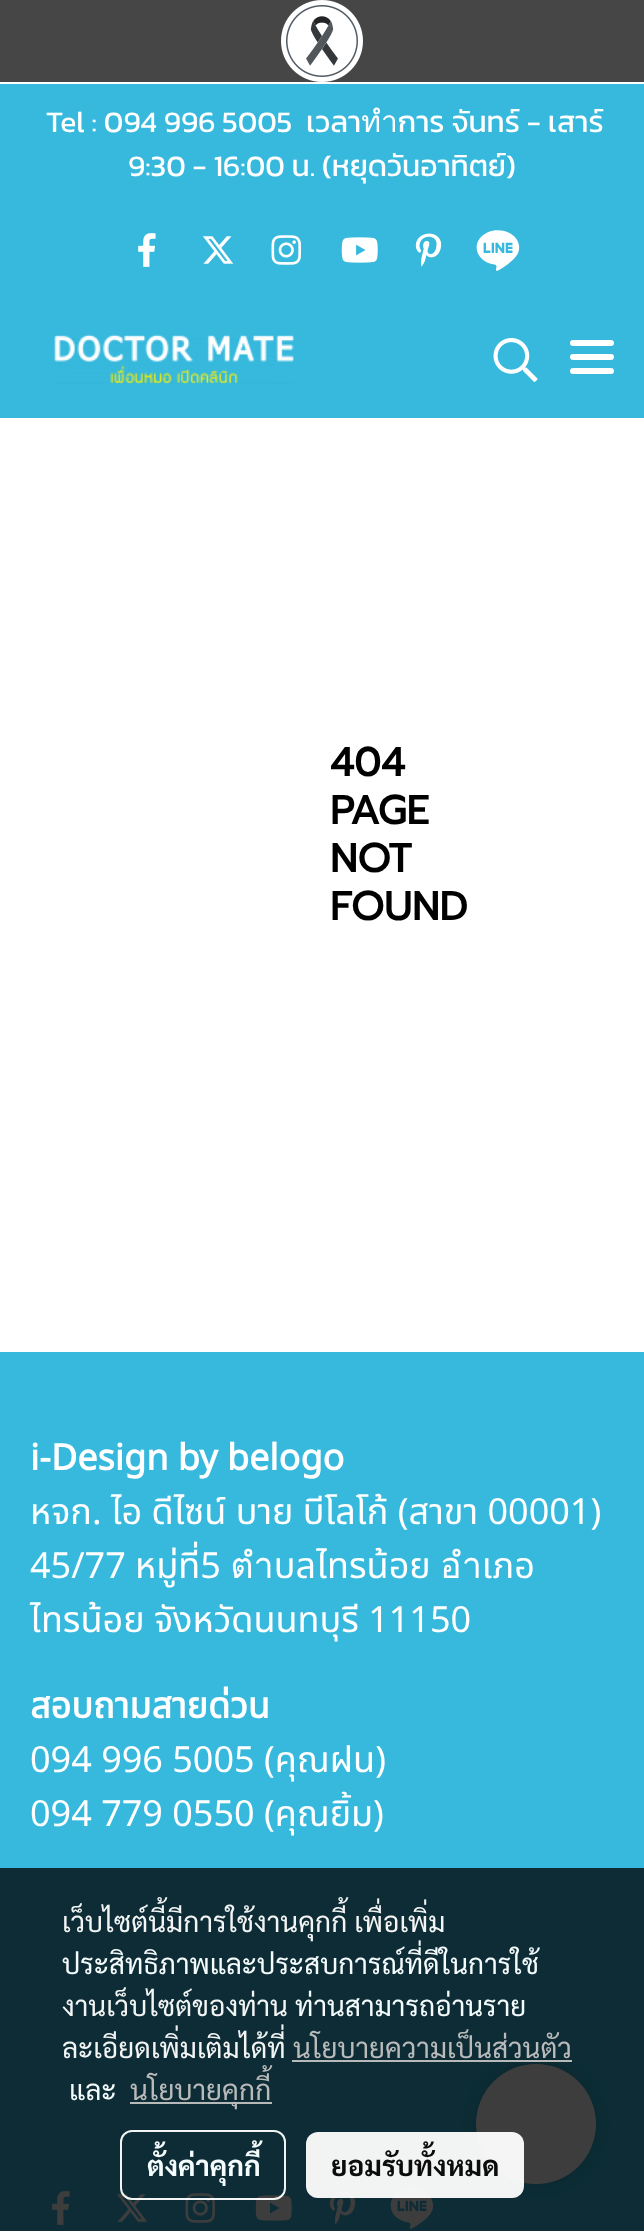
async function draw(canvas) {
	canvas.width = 644;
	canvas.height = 2231;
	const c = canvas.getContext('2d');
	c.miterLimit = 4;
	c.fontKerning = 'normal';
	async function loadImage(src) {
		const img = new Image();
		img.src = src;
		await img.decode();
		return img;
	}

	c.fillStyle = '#fff';
	c.fillRect(0, 0, 644, 2231);
	c.fillStyle = '#464646';
	c.fillRect(0, 0, 644, 82);
	c.drawImage(await loadImage('img1.png'), 281, 0, 82, 82);
	c.fillStyle = '#36b9dd';
	c.fillRect(0, 84, 644, 334);
	c.font = '30px Kanit';
	c.fillStyle = '#fff';
	c.fillText('Tel : 094 996 5005  เวลาทำการ จันทร์ - เสาร์', 46, 132);
	c.fillText('9:30 - 16:00 น. (หยุดวันอาทิตย์)', 128, 176);
	c.drawImage(await loadImage('img2.png'), 138, 233, 18, 34);
	c.drawImage(await loadImage('img3.png'), 203, 236, 31, 28);
	c.drawImage(await loadImage('img4.png'), 271, 235, 30, 30);
	c.drawImage(await loadImage('img5.png'), 341, 237, 37, 26);
	c.drawImage(await loadImage('img6.png'), 415, 233, 27, 34);
	c.drawImage(await loadImage('img7.png'), 476, 230, 44, 41);
	c.drawImage(await loadImage('img8.png'), 54, 334, 240, 51);
	c.drawImage(await loadImage('img9.png'), 493, 338, 45, 44);
	c.beginPath();
	c.roundRect(570, 354, 44, 6, 3);
	c.fill();
	c.beginPath();
	c.roundRect(570, 340, 44, 6, 3);
	c.fill();
	c.beginPath();
	c.roundRect(570, 368, 44, 6, 3);
	c.fill();
	c.font = 'bold 40px Prompt';
	c.fillStyle = '#000';
	for (const [text, x, y] of [
		['404', 330, 776],
		['PAGE', 330, 824],
		['NOT', 330, 872],
		['FOUND', 330, 920],
	]) {
		c.fillText(text, x, y);
	}
	c.fillStyle = '#36b9dd';
	c.fillRect(0, 1352, 644, 879);
	c.font = 'bold 36px Noto Sans Thai';
	c.fillStyle = '#fff';
	c.fillText('i-Design by belogo', 30, 1470);
	c.font = '36px Noto Sans Thai';
	for (const [text, x, y] of [
		['หจก. ไอ ดีไซน์ บาย บีโลโก้ (สาขา 00001)', 30, 1524],
		['45/77 หมู่ที่5 ตำบลไทรน้อย อำเภอ', 30, 1578],
		['ไทรน้อย จังหวัดนนทบุรี 11150', 30, 1632],
	]) {
		c.fillText(text, x, y);
	}
	c.font = 'bold 36px Noto Sans Thai';
	c.fillText('สอบถามสายด่วน', 30, 1718);
	c.font = '36px Noto Sans Thai';
	c.fillText('094 996 5005 (คุณฝน)', 30, 1772);
	c.fillText('094 779 0550 (คุณยิ้ม)', 30, 1826);
	c.drawImage(await loadImage('img2.png'), 52, 2191, 18, 34);
	c.drawImage(await loadImage('img3.png'), 117, 2194, 31, 28);
	c.drawImage(await loadImage('img4.png'), 185, 2193, 30, 30);
	c.drawImage(await loadImage('img5.png'), 255, 2195, 37, 26);
	c.drawImage(await loadImage('img6.png'), 329, 2191, 27, 34);
	c.drawImage(await loadImage('img10.png'), 390, 2188, 44, 41);
	c.fillStyle = '#00000024';
	c.filter = 'blur(7px)';
	c.beginPath();
	c.roundRect(476, 2064, 120, 120, 60);
	c.fill();
	c.filter = 'none';
	c.fillStyle = '#fff';
	c.beginPath();
	c.arc(536, 2124, 60, 0, 2 * Math.PI);
	c.fill();
	c.fillStyle = '#000000c2';
	c.fillRect(0, 1868, 644, 363);
	c.font = '28px Sarabun';
	c.fillStyle = '#f3f5f5';
	c.fillText('เว็บไซต์นี้มีการใช้งานคุกกี้ เพื่อเพิ่ม', 62, 1932);
	c.fillStyle = '#f5fcfd';
	c.fillText('ประสิทธิภาพและประสบการณ์ที่ดีในการใช้', 62, 1974);
	c.fillStyle = '#f3f5f5';
	c.fillText('งานเว็บไซต์ของท่าน', 62, 2016);
	c.fillStyle = '#f5fcfd';
	c.fillText('ท่านสามารถอ่านราย', 295, 2016);
	c.fillStyle = '#f3f5f5';
	c.fillText('ละเอียดเพิ่มเติมได้ที่', 62, 2058);
	c.fillStyle = '#b9bbbb';
	c.fillText('นโยบายความเป็นส่วนตัว', 293, 2058);
	c.fillStyle = '#c2c2c2f2';
	c.fillRect(292, 2060, 280, 2);
	c.fillStyle = '#f5fcfd';
	c.fillText('และ', 69, 2100);
	c.fillStyle = '#c2c2c2f2';
	c.fillRect(130, 2102, 142, 2);
	c.fillStyle = '#b9bbbb';
	c.fillText('นโยบายคุกกี้', 130, 2100);
	c.beginPath();
	c.roundRect(121, 2131, 164, 68, 11);
	c.strokeStyle = '#fffffff2';
	c.lineWidth = 2;
	c.stroke();
	c.font = 'bold 28px Sarabun';
	c.fillStyle = '#f5fcfd';
	c.fillText('ตั้งค่าคุกกี้', 147, 2176);
	c.fillStyle = '#fffffff2';
	c.beginPath();
	c.roundRect(306, 2132, 218, 66, 12);
	c.fill();
	c.fillStyle = '#0c0c0c';
	c.fillText('ยอมรับทั้งหมด', 331, 2176);
}

draw(document.querySelector('canvas'));
